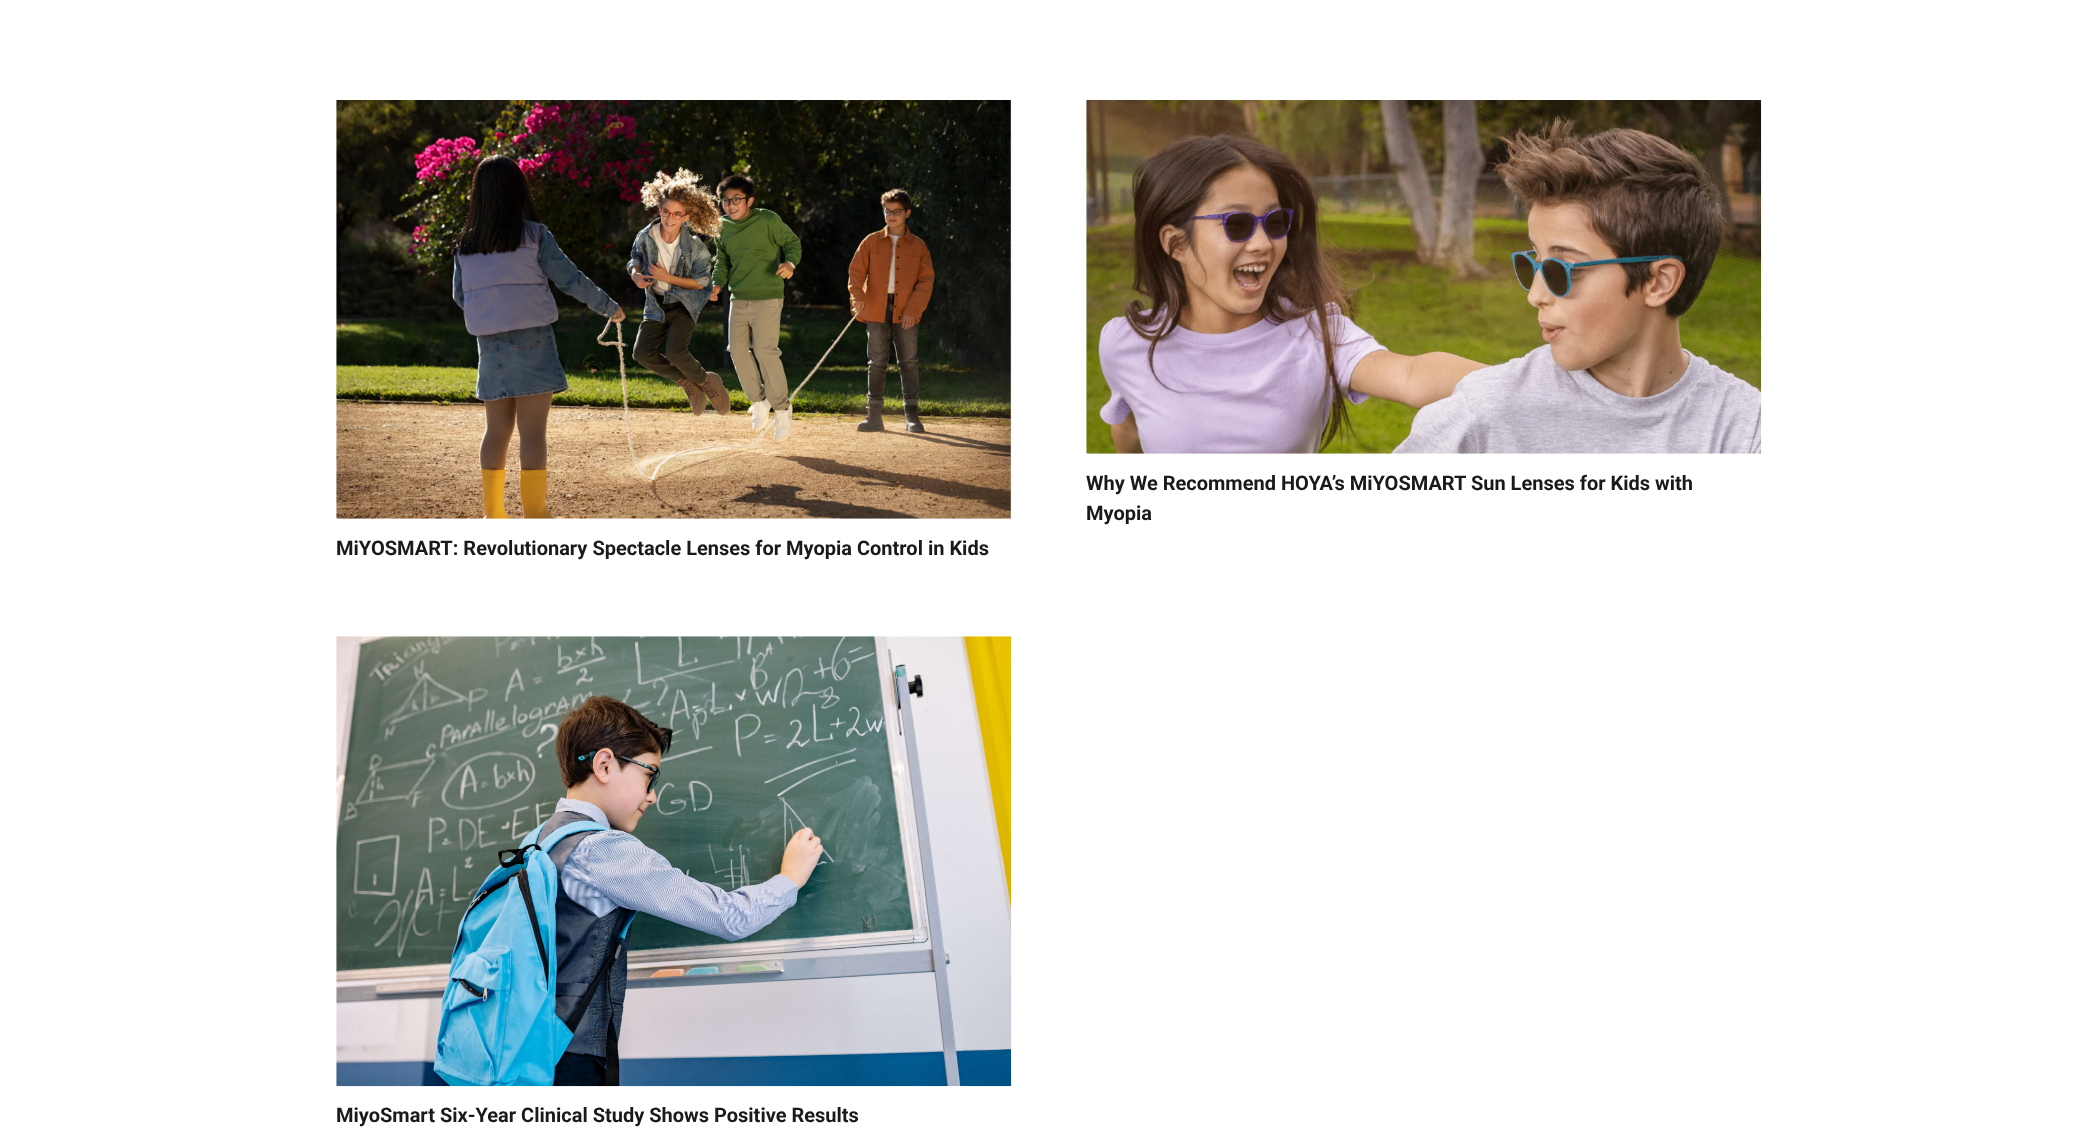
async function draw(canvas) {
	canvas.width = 2097;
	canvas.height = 1130;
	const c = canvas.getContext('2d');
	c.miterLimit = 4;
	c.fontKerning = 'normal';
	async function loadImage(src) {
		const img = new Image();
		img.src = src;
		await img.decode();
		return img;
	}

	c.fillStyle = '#fff';
	c.fillRect(0, 0, 2097, 1130);
	c.drawImage(await loadImage('img1.png'), 1086, 100, 676, 354);
	c.font = 'bold 20px Roboto';
	c.fillStyle = '#1a1a1a';
	c.fillText('Why We Recommend HOYA’s MiYOSMART Sun Lenses for Kids with', 1086, 490);
	c.fillText('Myopia', 1086, 520);
	c.drawImage(await loadImage('img2.png'), 336, 100, 676, 419);
	c.fillText('MiYOSMART: Revolutionary Spectacle Lenses for Myopia Control in Kids', 336, 555);
	c.drawImage(await loadImage('img3.png'), 336, 636, 676, 451);
	c.fillText('MiyoSmart Six-Year Clinical Study Shows Positive Results', 336, 1122);
}

draw(document.querySelector('canvas'));
